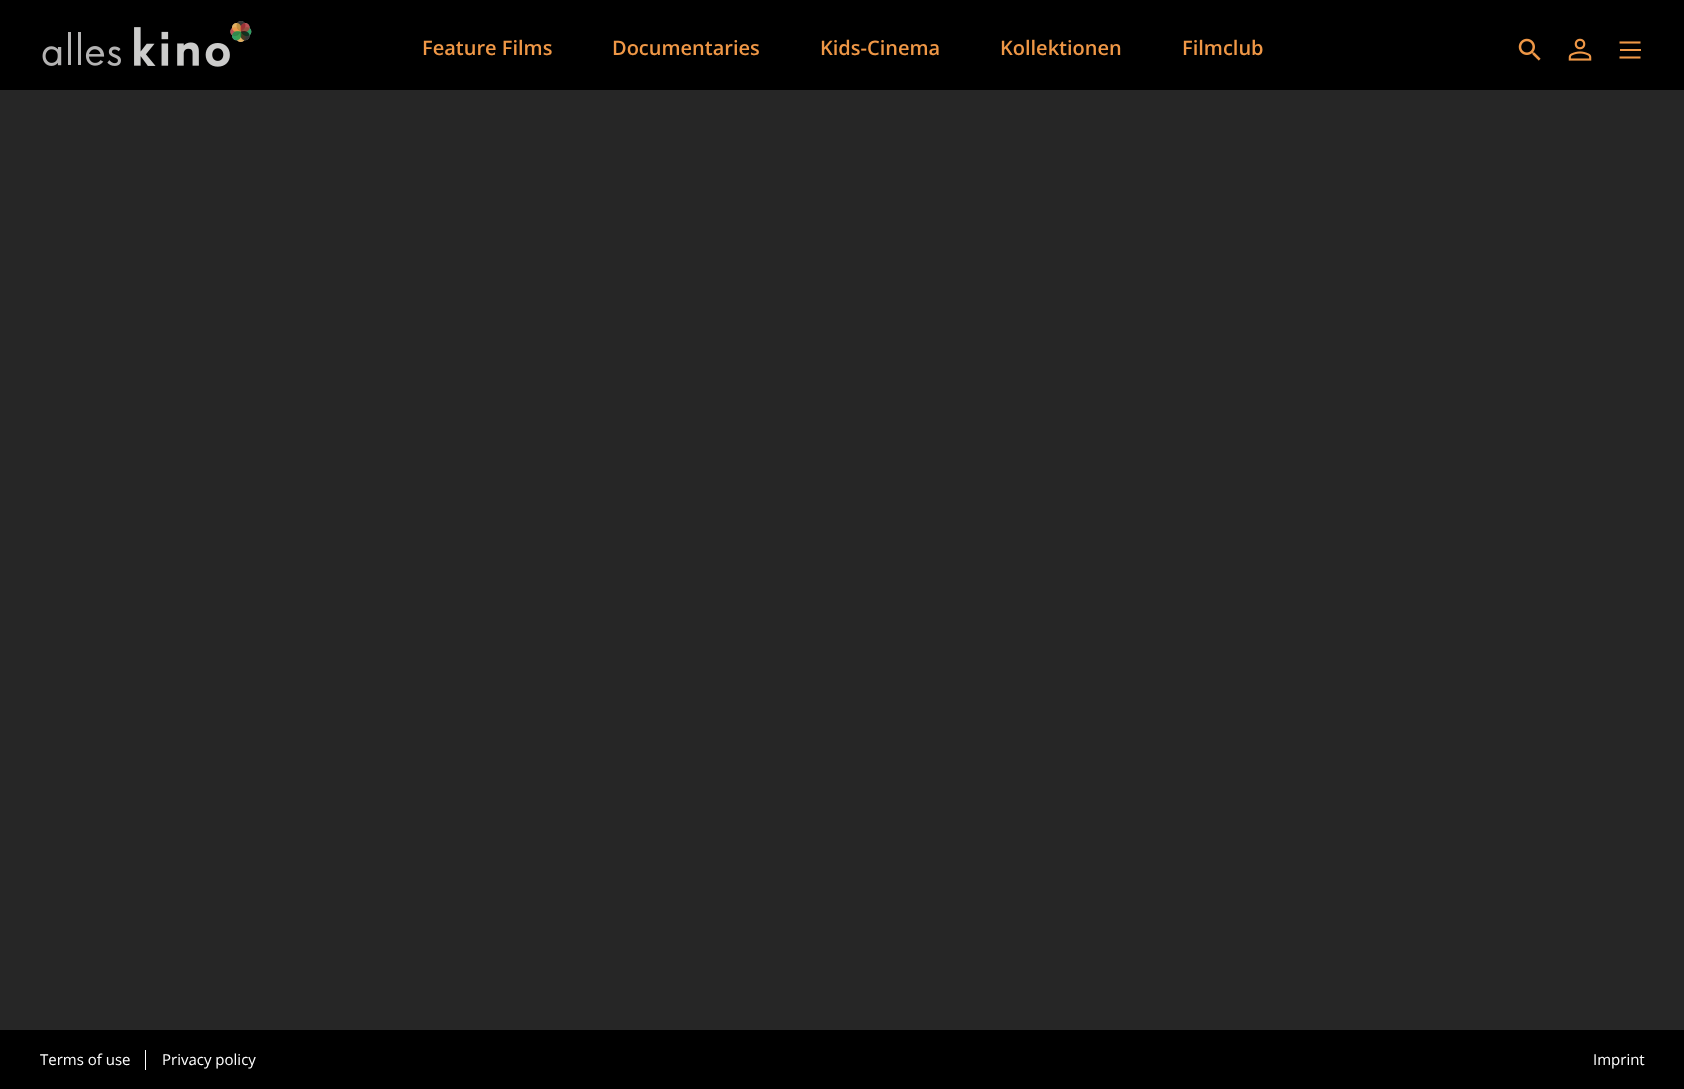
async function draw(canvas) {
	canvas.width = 1684;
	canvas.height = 1089;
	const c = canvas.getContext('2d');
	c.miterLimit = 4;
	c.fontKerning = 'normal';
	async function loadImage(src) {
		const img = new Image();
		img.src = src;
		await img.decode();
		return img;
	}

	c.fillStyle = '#262626';
	c.fillRect(0, 0, 1684, 1089);
	c.fillStyle = '#000';
	c.fillRect(0, 0, 1684, 90);
	c.drawImage(await loadImage('img1.png'), 42, 21, 210, 46);
	c.font = '600 20px Open Sans';
	c.fillStyle = '#ef9746';
	for (const [text, x, y] of [
		['Feature Films', 422, 55],
		['Documentaries', 612, 55],
		['Kids-Cinema', 820, 55],
		['Kollektionen', 1000, 55],
		['Filmclub', 1182, 55],
	]) {
		c.fillText(text, x, y);
	}
	c.drawImage(await loadImage('img2.png'), 1518, 38, 23, 23);
	c.drawImage(await loadImage('img3.png'), 1568, 38, 24, 23);
	c.beginPath();
	c.moveTo(1619.5, 42.5);
	c.lineTo(1640.5, 42.5);
	c.strokeStyle = '#ef9746';
	c.lineWidth = 2.1;
	c.stroke();
	c.fillRect(1620, 49, 21, 2);
	c.beginPath();
	c.moveTo(1619.5, 57.5);
	c.lineTo(1640.5, 57.5);
	c.stroke();
	c.fillStyle = '#000';
	c.fillRect(0, 1030, 1684, 59);
	c.font = '15px Open Sans';
	c.fillStyle = '#fff';
	c.fillText('Terms of use', 40, 1065);
	c.fillRect(145, 1050, 1, 20);
	c.fillText('Privacy policy', 162, 1065);
	c.fillText('Imprint', 1593, 1065);
}

draw(document.querySelector('canvas'));
